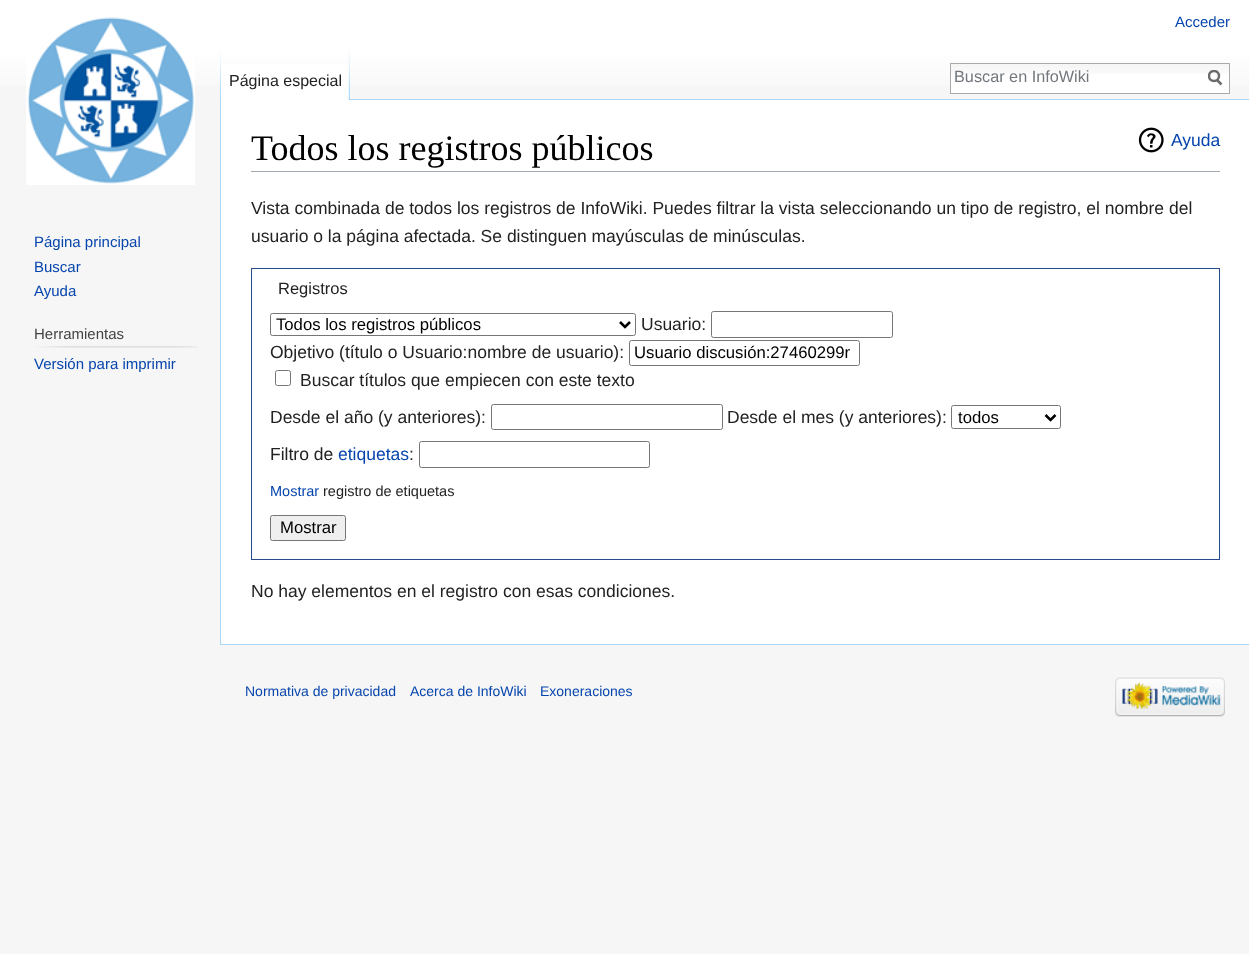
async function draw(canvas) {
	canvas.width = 1249;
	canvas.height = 954;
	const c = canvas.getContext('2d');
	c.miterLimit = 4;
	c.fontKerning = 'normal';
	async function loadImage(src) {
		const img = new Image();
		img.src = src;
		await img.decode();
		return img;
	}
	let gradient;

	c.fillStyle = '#f6f6f6';
	c.fillRect(0, 0, 1249, 954);
	gradient = c.createLinearGradient(625, 0, 625, 100);
	gradient.addColorStop(0.5, '#fff');
	gradient.addColorStop(1, '#f6f6f6');
	c.fillStyle = gradient;
	c.fillRect(0, 0, 1249, 86);
	c.font = '15px Liberation Sans';
	c.fillStyle = '#0645ad';
	c.fillText('Acceder', 1175, 27);
	c.drawImage(await loadImage('img1.png'), 220, 50, 1, 49);
	c.fillStyle = '#fff';
	c.fillRect(221, 64, 128, 36);
	c.drawImage(await loadImage('img2.png'), 348, 50, 2, 50);
	c.font = '16px Liberation Sans';
	c.fillStyle = '#222';
	c.fillText('Página especial', 229, 86);
	c.fillStyle = '#fff';
	c.fillRect(951, 74, 278, 19);
	c.drawImage(await loadImage('img3.png'), 951, 64, 278, 10);
	c.strokeStyle = '#aaa';
	c.strokeRect(950.5, 63.5, 279, 30);
	c.font = '16.25px Liberation Sans';
	c.fillStyle = '#72777d';
	c.fillText('Buscar en InfoWiki', 954, 82);
	c.beginPath();
	c.moveTo(1221.5, 84.5);
	c.lineTo(1216.5, 79.5);
	c.strokeStyle = '#6c6c6c';
	c.lineWidth = 2.5;
	c.stroke();
	c.save();
	c.beginPath();
	c.rect(1208, 70, 15, 16);
	c.clip();
	c.beginPath();
	c.arc(1214, 76, 5, 0, 2 * Math.PI);
	c.stroke();
	c.restore();
	c.drawImage(await loadImage('img4.png'), 26, 17, 169, 168);
	c.font = '15px Liberation Sans';
	c.fillStyle = '#0645ad';
	for (const [text, x, y] of [
		['Página principal', 34, 247],
		['Buscar', 34, 272],
		['Ayuda', 34, 296],
	]) {
		c.fillText(text, x, y);
	}
	c.fillStyle = '#444';
	c.fillText('Herramientas', 34, 339);
	c.drawImage(await loadImage('img5.png'), 37, 346, 161, 2);
	c.fillStyle = '#0645ad';
	c.fillText('Versión para imprimir', 34, 369);
	for (const [x, y, w, h, color] of [
		[221, 100, 1028, 544, '#fff'],
		[350, 99, 899, 1, '#a7d7f9'],
		[220, 644, 1029, 1, '#a7d7f9'],
		[220, 99, 1, 546, '#a7d7f9'],
		[251, 171, 969, 1, '#a2a9b1'],
	]) {
		c.fillStyle = color;
		c.fillRect(x, y, w, h);
	}
	c.font = '36px Liberation Serif';
	c.fillStyle = '#000';
	c.fillText('Todos los registros públicos', 251, 160);
	c.drawImage(await loadImage('img6.png'), 1138, 127, 26, 26);
	c.font = '17.5px Liberation Sans';
	c.fillStyle = '#0645ad';
	c.fillText('Ayuda', 1171, 146);
	c.fillStyle = '#222';
	c.fillText('Vista combinada de todos los registros de InfoWiki. Puedes filtrar la vista seleccionando un tipo de registro, el nombre del', 251, 214);
	c.fillText('usuario o la página afectada. Se distinguen mayúsculas de minúsculas.', 251, 242);
	c.strokeStyle = '#2a4b8d';
	c.lineWidth = 1;
	c.strokeRect(251.5, 268.5, 968, 291);
	c.font = '16.5px Liberation Sans';
	c.fillText('Registros', 278, 294);
	c.beginPath();
	c.roundRect(270.5, 313.5, 365, 22, 2);
	c.strokeStyle = '#767676';
	c.stroke();
	c.beginPath();
	c.moveTo(620, 322);
	c.lineTo(625, 327);
	c.lineTo(630, 322);
	c.strokeStyle = '#000';
	c.lineWidth = 2.5;
	c.stroke();
	c.font = '16.7px Liberation Sans';
	c.fillStyle = '#000';
	c.fillText('Todos los registros públicos', 276, 330);
	c.font = '17.5px Liberation Sans';
	c.fillStyle = '#222';
	c.fillText('Usuario:', 641, 330);
	c.beginPath();
	c.roundRect(711.5, 311.5, 181, 26, 2);
	c.strokeStyle = '#767676';
	c.lineWidth = 1;
	c.stroke();
	c.fillText('Objetivo (título o Usuario:nombre de usuario):', 270, 358);
	c.beginPath();
	c.roundRect(629.5, 340.5, 230, 25, 2);
	c.stroke();
	c.font = '16.7px Liberation Sans';
	c.fillStyle = '#000';
	c.fillText('Usuario discusión:27460299r', 634, 358);
	c.beginPath();
	c.roundRect(275.5, 370.5, 15, 15, 2);
	c.stroke();
	c.font = '17.5px Liberation Sans';
	c.fillStyle = '#222';
	c.fillText('Buscar títulos que empiecen con este texto', 300, 386);
	c.fillText('Desde el año (y anteriores):', 270, 423);
	c.beginPath();
	c.roundRect(491.5, 404.5, 231, 25, 2);
	c.stroke();
	c.fillText('Desde el mes (y anteriores):', 727, 423);
	c.beginPath();
	c.roundRect(951.5, 405.5, 109, 23, 2);
	c.stroke();
	c.beginPath();
	c.moveTo(1045.5, 415);
	c.lineTo(1050.5, 420);
	c.lineTo(1055.5, 415);
	c.strokeStyle = '#000';
	c.lineWidth = 2.5;
	c.stroke();
	c.font = '16.7px Liberation Sans';
	c.fillStyle = '#000';
	c.fillText('todos', 958, 423);
	c.font = '17.5px Liberation Sans';
	c.fillStyle = '#222';
	c.fillText('Filtro de', 270, 460);
	c.fillStyle = '#0645ad';
	c.fillText('etiquetas', 338, 460);
	c.fillStyle = '#222';
	c.fillText(':', 409, 460);
	c.beginPath();
	c.roundRect(419.5, 441.5, 230, 26, 2);
	c.strokeStyle = '#767676';
	c.lineWidth = 1;
	c.stroke();
	c.font = '14.5px Liberation Sans';
	c.fillStyle = '#0645ad';
	c.fillText('Mostrar', 270, 496);
	c.fillStyle = '#222';
	c.fillText('registro de etiquetas', 323, 496);
	c.fillStyle = '#efefef';
	c.beginPath();
	c.roundRect(270.5, 515.5, 75, 25, 2);
	c.fill();
	c.stroke();
	c.font = '16.7px Liberation Sans';
	c.fillStyle = '#000';
	c.fillText('Mostrar', 280, 533);
	c.font = '17.5px Liberation Sans';
	c.fillStyle = '#222';
	c.fillText('No hay elementos en el registro con esas condiciones.', 251, 597);
	c.font = '14px Liberation Sans';
	c.fillStyle = '#0645ad';
	for (const [text, x, y] of [
		['Normativa de privacidad', 245, 696],
		['Acerca de InfoWiki', 410, 696],
		['Exoneraciones', 540, 696],
	]) {
		c.fillText(text, x, y);
	}
	c.drawImage(await loadImage('img7.png'), 1115, 677, 110, 40);
}

draw(document.querySelector('canvas'));
